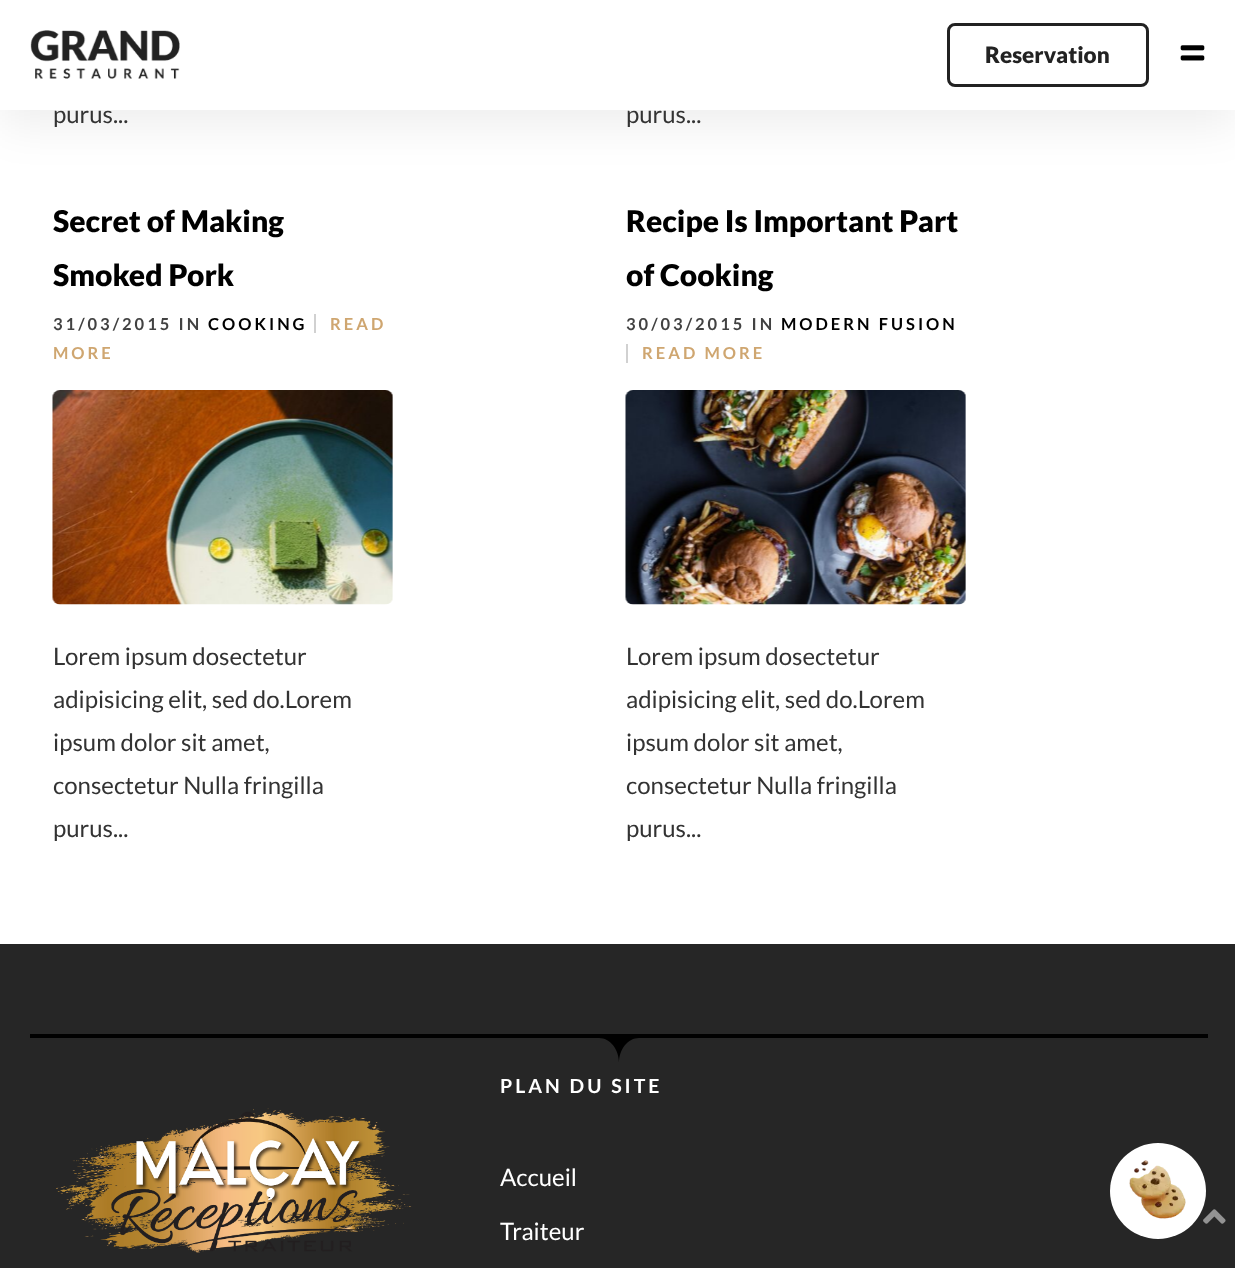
async function draw(canvas) {
	canvas.width = 1235;
	canvas.height = 1268;
	const c = canvas.getContext('2d');
	c.miterLimit = 4;
	c.fontKerning = 'normal';
	async function loadImage(src) {
		const img = new Image();
		img.src = src;
		await img.decode();
		return img;
	}

	c.fillStyle = '#fff';
	c.fillRect(0, 0, 1235, 1268);
	c.save();
	c.beginPath();
	c.moveTo(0, 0);
	c.lineTo(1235, 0);
	c.lineTo(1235, 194);
	c.lineTo(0, 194);
	c.closePath();
	c.moveTo(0, 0);
	c.lineTo(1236, 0);
	c.lineTo(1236, 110);
	c.lineTo(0, 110);
	c.closePath();
	c.clip('evenodd');
	c.fillStyle = '#00000012';
	c.filter = 'blur(22.5px)';
	c.beginPath();
	c.rect(0, 15, 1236, 110);
	c.fill();
	c.filter = 'none';
	c.restore();
	c.fillStyle = '#ffffffed';
	c.fillRect(0, 109, 1235, 1);
	c.drawImage(await loadImage('img1.png'), 30, 30, 150, 49);
	c.beginPath();
	c.roundRect(948.5, 24.5, 199, 61, 6.5);
	c.strokeStyle = '#222';
	c.lineWidth = 3;
	c.stroke();
	c.font = '900 22.5px Lato';
	c.fillStyle = '#222';
	c.fillText('Reservation', 985, 63);
	c.drawImage(await loadImage('img2.png'), 1180, 45, 25, 16);
	c.font = '24px Lato';
	c.fillStyle = '#333';
	c.fillText('purus...', 53, 123);
	c.fillText('purus...', 626, 123);
	c.font = '900 30px Lato';
	c.fillStyle = '#000';
	c.fillText('Secret of Making', 53, 232);
	c.fillText('Smoked Pork', 53, 286);
	c.letterSpacing = '3px';
	c.font = 'bold 16.5px Lato';
	c.fillStyle = '#424242';
	c.fillText('31/03/2015 IN', 53, 330);
	c.fillStyle = '#000';
	c.fillText('COOKING', 208, 330);
	c.fillStyle = '#cfa670';
	c.fillText('READ', 330, 330);
	c.fillStyle = '#d1d1d1';
	c.fillRect(314, 314, 2, 19);
	c.fillStyle = '#cfa670';
	c.fillText('MORE', 53, 359);
	c.drawImage(await loadImage('img3.png'), 52, 390, 341, 215);
	c.letterSpacing = '0px';
	c.font = '24px Lato';
	c.fillStyle = '#333';
	for (const [text, x, y] of [
		['Lorem ipsum dosectetur', 53, 665],
		['adipisicing elit, sed do.Lorem', 53, 708],
		['ipsum dolor sit amet,', 53, 751],
		['consectetur Nulla fringilla', 53, 794],
		['purus...', 53, 837],
	]) {
		c.fillText(text, x, y);
	}
	c.font = '900 30px Lato';
	c.fillStyle = '#000';
	c.fillText('Recipe Is Important Part', 626, 232);
	c.fillText('of Cooking', 626, 286);
	c.letterSpacing = '3px';
	c.font = 'bold 16.5px Lato';
	c.fillStyle = '#424242';
	c.fillText('30/03/2015 IN', 626, 330);
	c.fillStyle = '#000';
	c.fillText('MODERN FUSION', 781, 330);
	c.fillStyle = '#cfa670';
	c.fillText('READ MORE', 642, 359);
	c.fillStyle = '#d1d1d1';
	c.fillRect(626, 344, 2, 19);
	c.drawImage(await loadImage('img4.png'), 625, 390, 341, 215);
	c.letterSpacing = '0px';
	c.font = '24px Lato';
	c.fillStyle = '#333';
	for (const [text, x, y] of [
		['Lorem ipsum dosectetur', 626, 665],
		['adipisicing elit, sed do.Lorem', 626, 708],
		['ipsum dolor sit amet,', 626, 751],
		['consectetur Nulla fringilla', 626, 794],
		['purus...', 626, 837],
	]) {
		c.fillText(text, x, y);
	}
	c.fillStyle = '#262626';
	c.fillRect(0, 944, 1235, 324);
	c.fillStyle = '#000';
	c.beginPath();
	c.moveTo(30, 1034);
	c.lineTo(30, 1038);
	c.lineTo(599, 1038);
	c.bezierCurveTo(610, 1038, 619, 1049, 619, 1063);
	c.bezierCurveTo(619, 1049, 628, 1038, 639, 1038);
	c.lineTo(1208, 1038);
	c.lineTo(1208, 1034);
	c.closePath();
	c.fill();
	c.drawImage(await loadImage('img5.png'), 56, 1108, 356, 145);
	c.letterSpacing = '3px';
	c.font = 'bold 19.5px Lato';
	c.fillStyle = '#fff';
	c.fillText('PLAN DU SITE', 500, 1093);
	c.letterSpacing = '0px';
	c.font = '24px Lato';
	c.fillText('Accueil', 500, 1186);
	c.fillText('Traiteur', 500, 1240);
	c.drawImage(await loadImage('img7.png'), 1203, 1209, 23, 15);
	c.beginPath();
	c.arc(1158, 1191, 48, 0, 2 * Math.PI);
	c.fill();
	c.drawImage(await loadImage('img6.png'), 1129, 1160, 57, 59);
}

draw(document.querySelector('canvas'));
